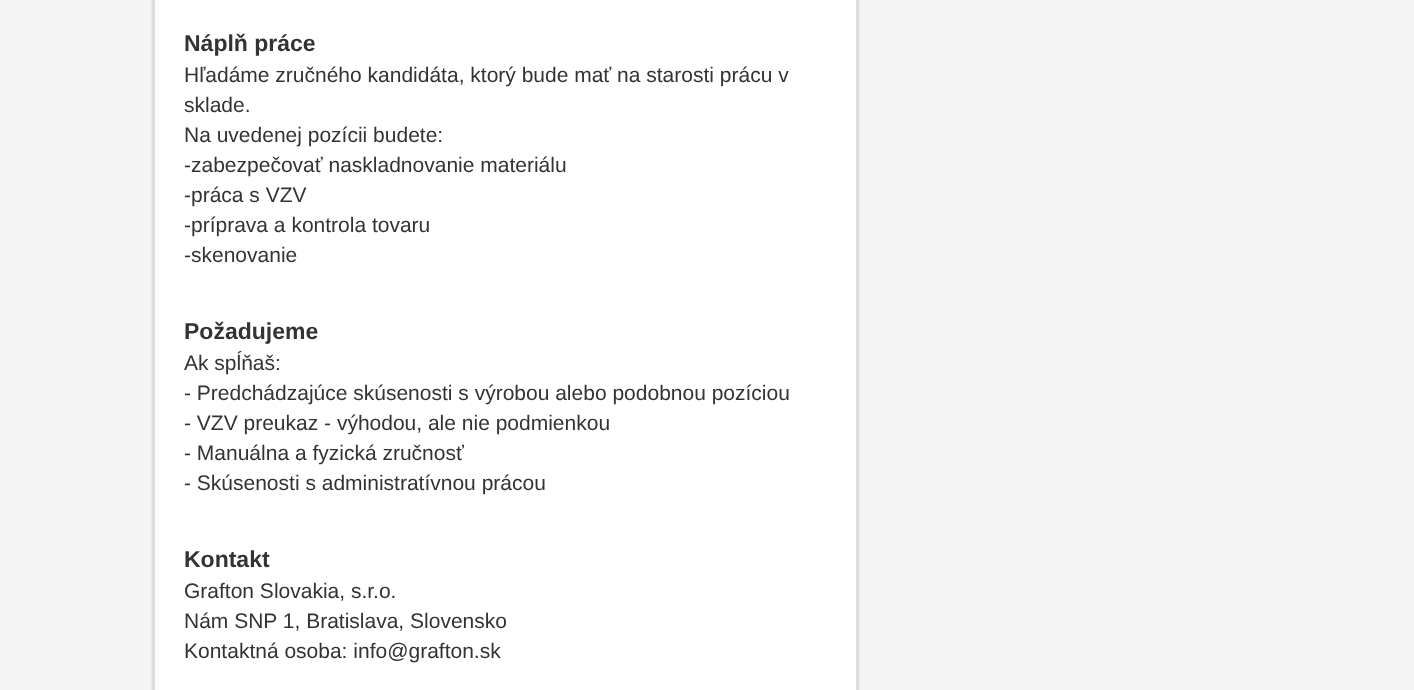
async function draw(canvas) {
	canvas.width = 1414;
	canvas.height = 690;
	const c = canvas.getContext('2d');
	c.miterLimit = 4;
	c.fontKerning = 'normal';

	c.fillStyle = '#f4f4f4';
	c.fillRect(0, 0, 1414, 690);
	c.fillStyle = '#00000040';
	c.filter = 'blur(1.5px)';
	c.beginPath();
	c.roundRect(153, -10, 705, 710, 5);
	c.fill();
	c.filter = 'none';
	c.fillStyle = '#fff';
	c.beginPath();
	c.rect(154, -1, 703, 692);
	c.fill();
	c.strokeStyle = '#ddd';
	c.lineWidth = 2;
	c.stroke();
	c.font = 'bold 23px Liberation Sans';
	c.fillStyle = '#333';
	c.fillText('Náplň práce', 184, 51);
	c.font = '21px Liberation Sans';
	for (const [text, x, y] of [
		['Hľadáme zručného kandidáta, ktorý bude mať na starosti prácu v', 184, 82],
		['sklade.', 184, 112],
		['Na uvedenej pozícii budete:', 184, 142],
		['-zabezpečovať naskladnovanie materiálu', 184, 172],
		['-práca s VZV', 184, 202],
		['-príprava a kontrola tovaru', 184, 232],
		['-skenovanie', 184, 262],
	]) {
		c.fillText(text, x, y);
	}
	c.font = 'bold 23px Liberation Sans';
	c.fillText('Požadujeme', 184, 339);
	c.font = '21px Liberation Sans';
	for (const [text, x, y] of [
		['Ak spĺňaš:', 184, 370],
		['- Predchádzajúce skúsenosti s výrobou alebo podobnou pozíciou', 184, 400],
		['- VZV preukaz - výhodou, ale nie podmienkou', 184, 430],
		['- Manuálna a fyzická zručnosť', 184, 460],
		['- Skúsenosti s administratívnou prácou', 184, 490],
	]) {
		c.fillText(text, x, y);
	}
	c.font = 'bold 23px Liberation Sans';
	c.fillText('Kontakt', 184, 567);
	c.font = '21px Liberation Sans';
	for (const [text, x, y] of [
		['Grafton Slovakia, s.r.o.', 184, 598],
		['Nám SNP 1, Bratislava, Slovensko', 184, 628],
		['Kontaktná osoba: info@grafton.sk', 184, 658],
	]) {
		c.fillText(text, x, y);
	}
}

draw(document.querySelector('canvas'));
